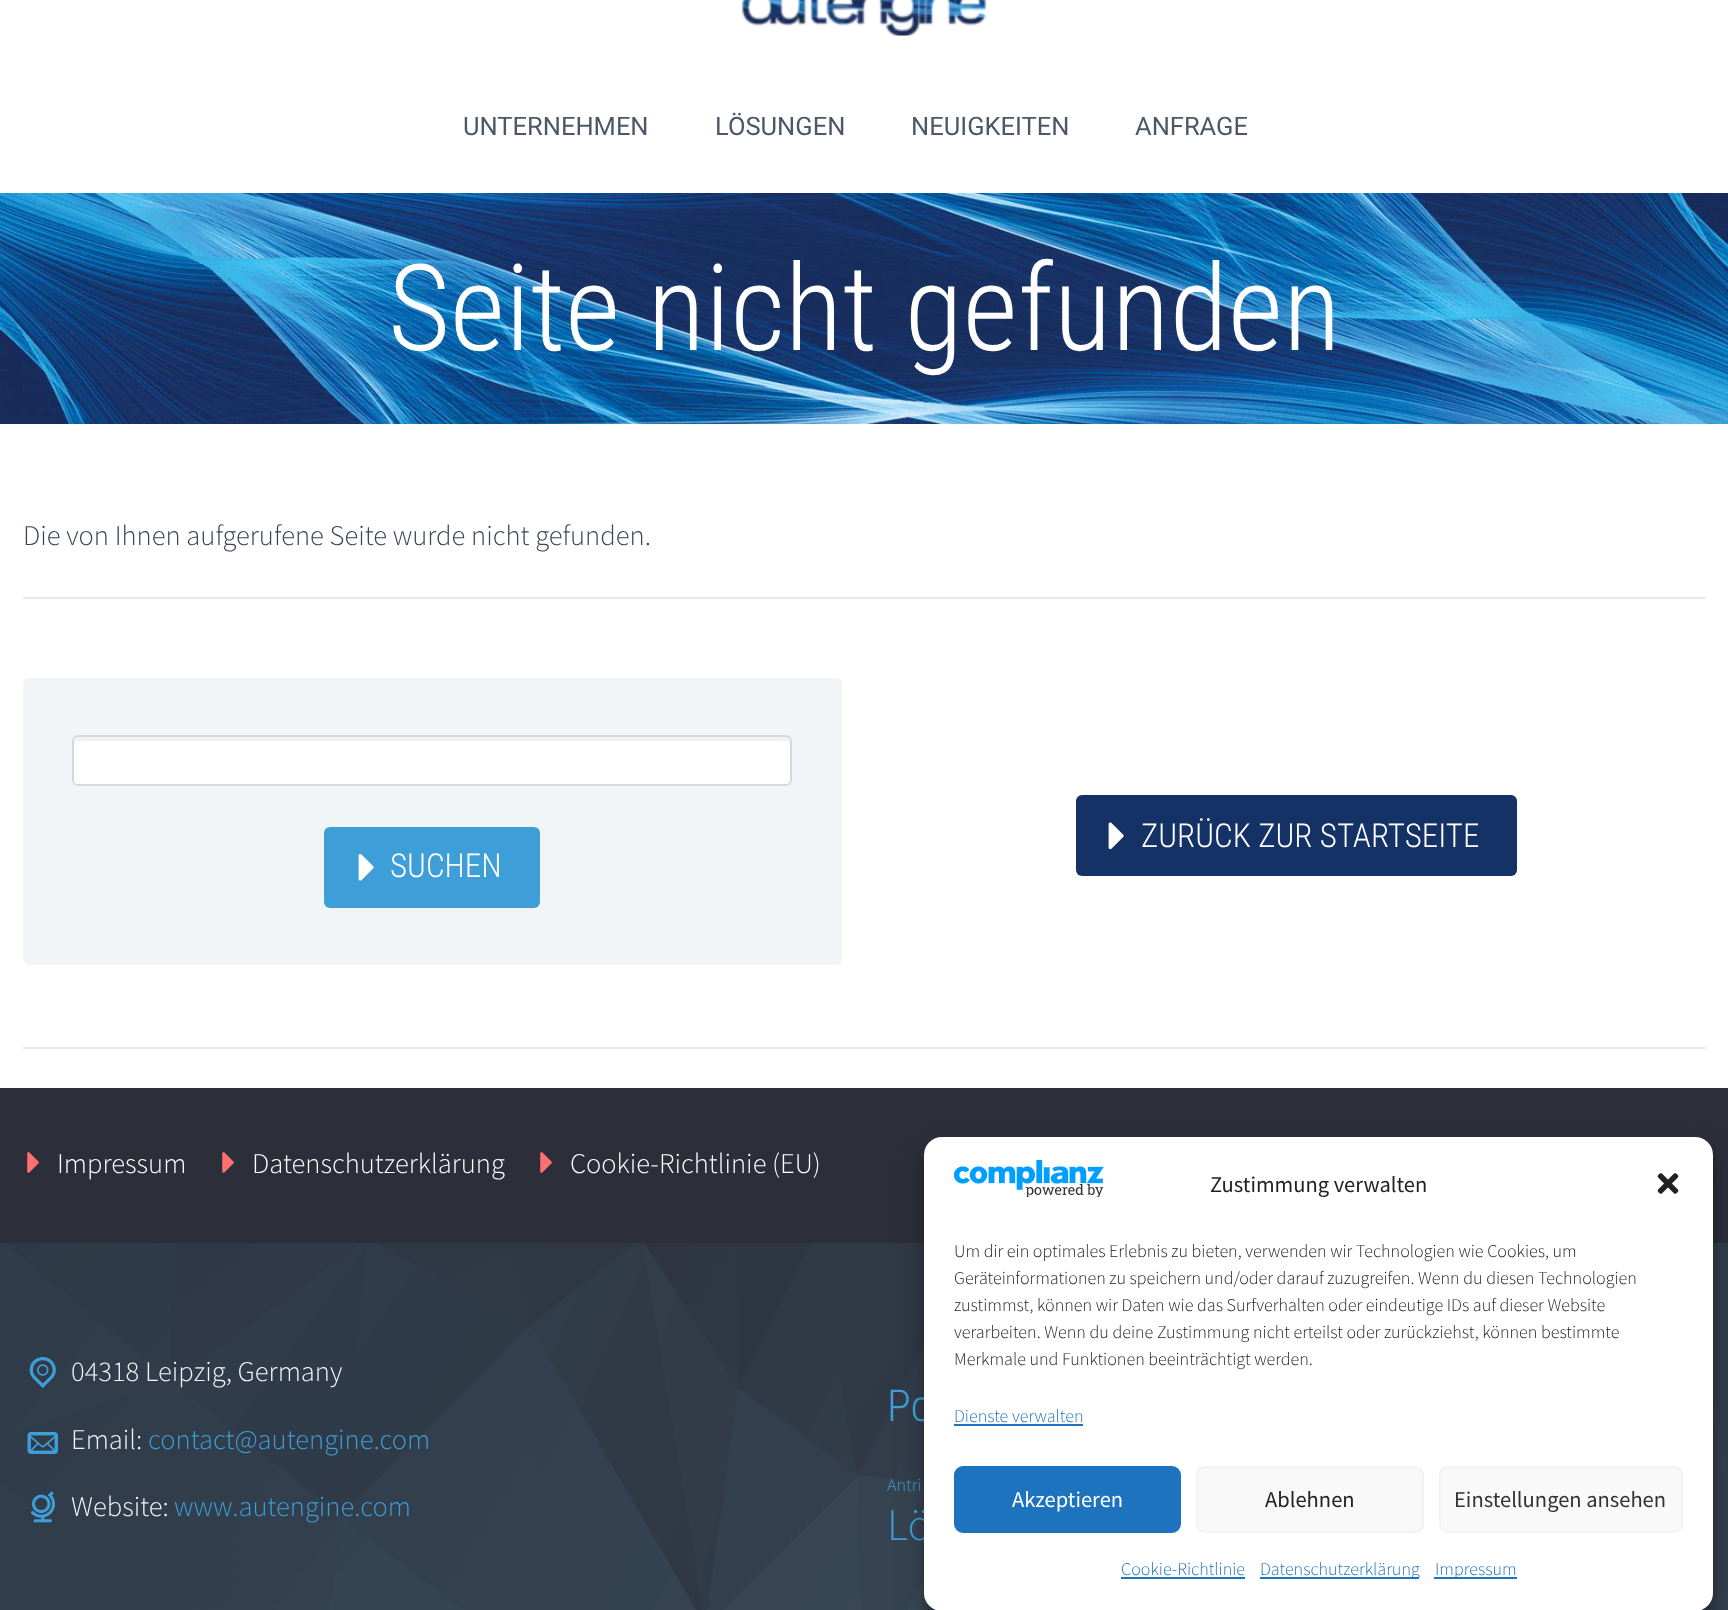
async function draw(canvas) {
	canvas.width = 1728;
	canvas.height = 1610;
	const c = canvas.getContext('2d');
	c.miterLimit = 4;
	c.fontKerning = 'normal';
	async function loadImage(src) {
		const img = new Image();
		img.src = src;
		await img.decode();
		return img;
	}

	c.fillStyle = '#fff';
	c.fillRect(0, 0, 1728, 1610);
	c.drawImage(await loadImage('img1.png'), 741, 0, 246, 36);
	c.font = '25.5px Roboto';
	c.fillStyle = '#4c5867';
	for (const [text, x, y] of [
		['UNTERNEHMEN', 463, 135],
		['LÖSUNGEN', 715, 135],
		['NEUIGKEITEN', 911, 135],
		['ANFRAGE', 1135, 135],
	]) {
		c.fillText(text, x, y);
	}
	c.drawImage(await loadImage('img2.png'), 0, 193, 1728, 231);
	c.font = '300 120px Roboto Condensed';
	c.fillStyle = '#fff';
	c.fillText('Seite nicht gefunden', 388, 350);
	c.font = '300 28.5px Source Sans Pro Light';
	c.fillStyle = '#384554';
	c.fillText('Die von Ihnen aufgerufene Seite wurde nicht gefunden.', 23, 545);
	c.fillStyle = '#ebebeb';
	c.fillRect(23, 597, 1683, 2);
	c.fillStyle = '#143266';
	c.beginPath();
	c.roundRect(1076, 795, 441, 81, 6);
	c.fill();
	c.drawImage(await loadImage('img3.png'), 1108, 822, 16, 28);
	c.font = '300 33px Roboto Condensed';
	c.fillStyle = '#fff';
	c.fillText('ZURÜCK ZUR STARTSEITE', 1141, 847);
	c.fillStyle = '#f1f5f8';
	c.beginPath();
	c.roundRect(23, 678, 819, 287, 6);
	c.fill();
	c.fillStyle = '#fff';
	c.beginPath();
	c.roundRect(72, 735, 720, 51, 6);
	c.fill();
	c.fillStyle = '#eff1f2';
	c.beginPath();
	c.moveTo(78, 741);
	c.lineTo(786, 741);
	c.bezierCurveTo(788, 741, 790, 743, 790, 746);
	c.lineTo(790, 783);
	c.bezierCurveTo(791, 782, 791, 781, 791, 780);
	c.lineTo(791, 742);
	c.bezierCurveTo(791, 739, 789, 737, 786, 737);
	c.lineTo(79, 737);
	c.bezierCurveTo(76, 737, 74, 739, 74, 742);
	c.lineTo(74, 746);
	c.bezierCurveTo(74, 743, 76, 741, 78, 741);
	c.closePath();
	c.fill();
	c.beginPath();
	c.roundRect(73, 736, 718, 49, 5);
	c.strokeStyle = '#d2dae1';
	c.lineWidth = 2;
	c.stroke();
	c.fillStyle = '#3e9ed7';
	c.beginPath();
	c.roundRect(324, 827, 216, 81, 6);
	c.fill();
	c.drawImage(await loadImage('img4.png'), 358, 854, 16, 27);
	c.fillStyle = '#fff';
	c.fillText('SUCHEN', 390, 877);
	c.fillStyle = '#ebebeb';
	c.fillRect(23, 1047, 1683, 2);
	c.fillStyle = '#2c2e3a';
	c.fillRect(0, 1088, 1728, 155);
	c.drawImage(await loadImage('img5.png'), 27, 1152, 12, 21);
	c.font = '300 28.5px Source Sans Pro Light';
	c.fillStyle = '#fff';
	c.fillText('Impressum', 57, 1173);
	c.drawImage(await loadImage('img5.png'), 222, 1152, 12, 21);
	c.fillText('Datenschutzerklärung', 252, 1173);
	c.drawImage(await loadImage('img5.png'), 540, 1152, 12, 21);
	c.fillText('Cookie-Richtlinie (EU)', 570, 1173);
	c.drawImage(await loadImage('img6.png'), 0, 1243, 1728, 367);
	c.drawImage(await loadImage('img7.png'), 29, 1356, 27, 32);
	c.fillStyle = '#f1f5f8';
	c.fillText('04318 Leipzig, Germany', 71, 1381);
	c.drawImage(await loadImage('img8.png'), 27, 1432, 31, 22);
	c.fillText('Email:', 71, 1449);
	c.fillStyle = '#3e9ed7';
	c.fillText('contact@autengine.com', 148, 1449);
	c.drawImage(await loadImage('img9.png'), 31, 1491, 24, 32);
	c.fillStyle = '#f1f5f8';
	c.fillText('Website:', 71, 1516);
	c.fillStyle = '#3e9ed7';
	c.fillText('www.autengine.com', 174, 1516);
	c.font = '300 44px Roboto Condensed';
	c.fillText('Po', 887, 1421);
	c.font = '300 18px Source Sans Pro Light';
	c.fillText('Antri', 887, 1491);
	c.font = '300 45px Source Sans Pro Light';
	c.fillText('Lö', 887, 1540);
	c.fillStyle = '#0000003b';
	c.filter = 'blur(4.5px)';
	c.beginPath();
	c.roundRect(924, 1146, 789, 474, 18);
	c.fill();
	c.filter = 'none';
	c.fillStyle = '#00000030';
	c.filter = 'blur(15px)';
	c.beginPath();
	c.roundRect(924, 1152, 789, 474, 18);
	c.fill();
	c.filter = 'none';
	c.fillStyle = '#fff';
	c.beginPath();
	c.roundRect(924, 1137, 789, 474, 18);
	c.fill();
	c.drawImage(await loadImage('img10.png'), 954, 1160, 150, 37);
	c.font = '22.5px Source Sans Pro';
	c.fillStyle = '#222';
	c.fillText('Zustimmung verwalten', 1210, 1192);
	c.drawImage(await loadImage('img11.png'), 1657, 1173, 22, 21);
	c.font = '300 18px Source Sans Pro Light';
	for (const [text, x, y] of [
		['Um dir ein optimales Erlebnis zu bieten, verwenden wir Technologien wie Cookies, um', 954, 1257],
		['Geräteinformationen zu speichern und/oder darauf zuzugreifen. Wenn du diesen Technologien', 954, 1284],
		['zustimmst, können wir Daten wie das Surfverhalten oder eindeutige IDs auf dieser Website', 954, 1311],
		['verarbeiten. Wenn du deine Zustimmung nicht erteilst oder zurückziehst, können bestimmte', 954, 1338],
		['Merkmale und Funktionen beeinträchtigt werden.', 954, 1365],
	]) {
		c.fillText(text, x, y);
	}
	c.fillStyle = '#1e73be';
	c.fillText('Dienste verwalten', 954, 1422);
	c.fillRect(954, 1424, 129, 2);
	c.beginPath();
	c.roundRect(955, 1467, 225, 65, 8);
	c.fill();
	c.strokeStyle = '#1e73be';
	c.stroke();
	c.font = '22.5px Source Sans Pro';
	c.fillStyle = '#fff';
	c.fillText('Akzeptieren', 1012, 1507);
	c.fillStyle = '#f9f9f9';
	c.beginPath();
	c.roundRect(1197, 1467, 226, 65, 8);
	c.fill();
	c.strokeStyle = '#f2f2f2';
	c.stroke();
	c.fillStyle = '#222';
	c.fillText('Ablehnen', 1265, 1507);
	c.fillStyle = '#f9f9f9';
	c.beginPath();
	c.roundRect(1440, 1467, 242, 65, 8);
	c.fill();
	c.stroke();
	c.fillStyle = '#333';
	c.fillText('Einstellungen ansehen', 1454, 1507);
	c.font = '300 18px Source Sans Pro Light';
	c.fillStyle = '#1e73be';
	c.fillText('Cookie-Richtlinie', 1121, 1575);
	c.fillRect(1121, 1577, 124, 2);
	c.fillRect(1260, 1577, 159, 2);
	c.fillText('Datenschutzerklärung', 1260, 1575);
	c.fillRect(1434, 1577, 83, 2);
	c.fillText('Impressum', 1435, 1575);
}

draw(document.querySelector('canvas'));
